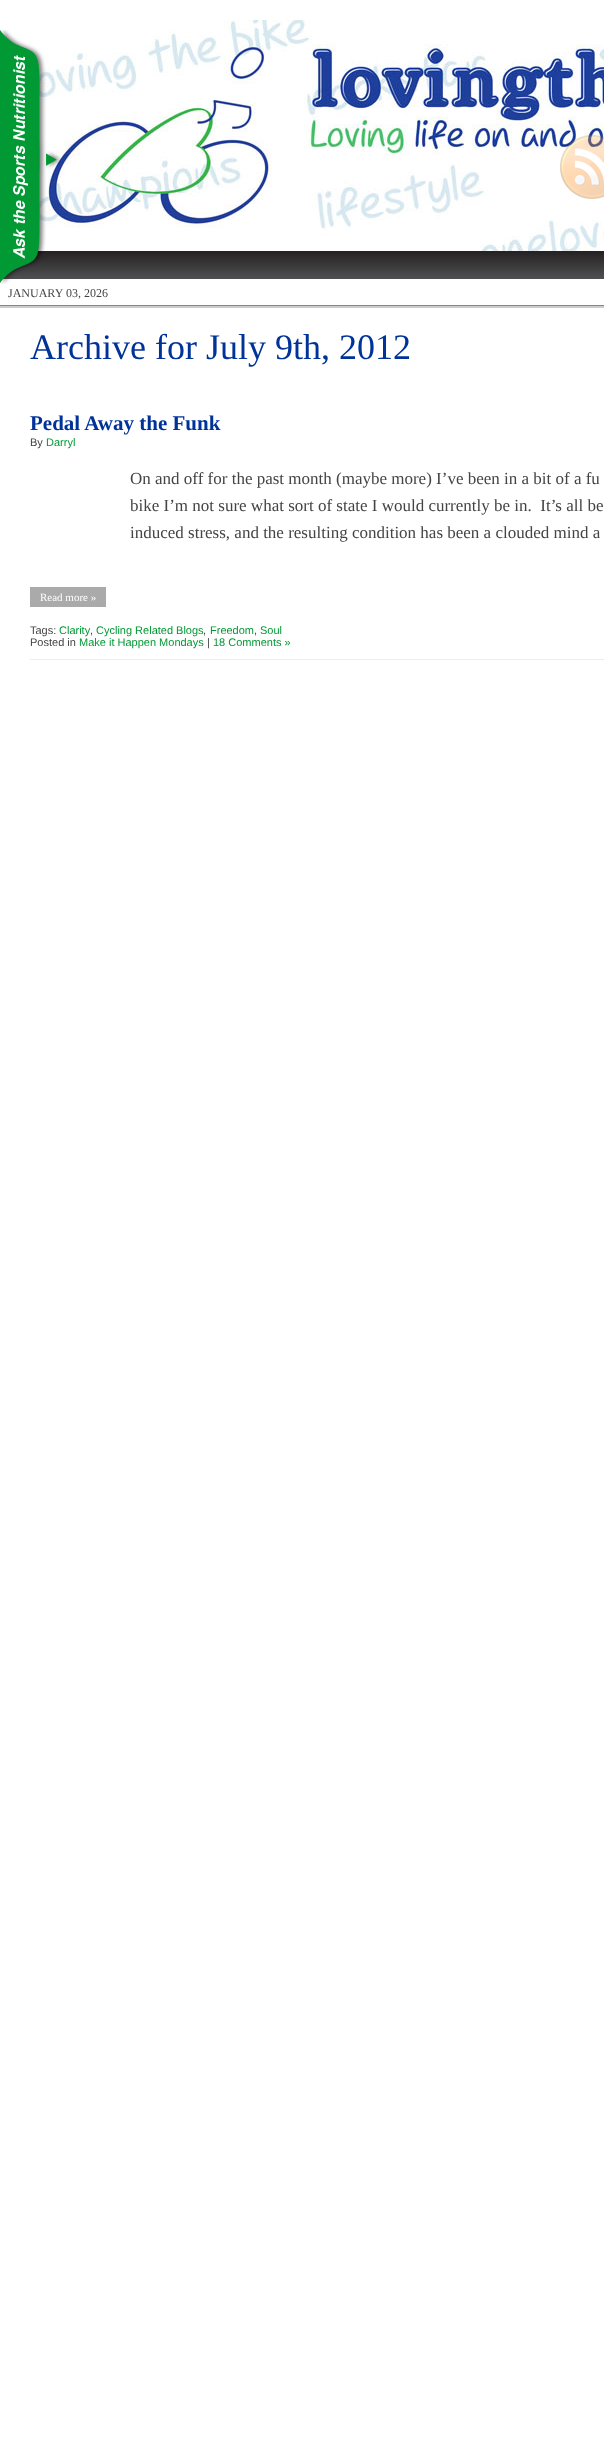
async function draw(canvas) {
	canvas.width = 604;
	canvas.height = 2447;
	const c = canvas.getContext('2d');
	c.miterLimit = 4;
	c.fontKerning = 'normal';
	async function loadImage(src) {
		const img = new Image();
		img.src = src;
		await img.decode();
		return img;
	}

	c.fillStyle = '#fff';
	c.fillRect(0, 0, 604, 2447);
	c.drawImage(await loadImage('img1.png'), 24, 20, 580, 231);
	c.drawImage(await loadImage('img2.png'), 560, 135, 44, 64);
	c.drawImage(await loadImage('img3.png'), 3, 251, 601, 28);
	c.fillStyle = '#888';
	c.fillRect(0, 305, 604, 1);
	c.font = '12px Liberation Serif';
	c.fillStyle = '#444';
	c.fillText('JANUARY 03, 2026', 8, 297);
	c.fillStyle = '#ccc';
	c.fillRect(0, 306, 604, 2);
	c.drawImage(await loadImage('img4.png'), 0, 30, 61, 254);
	c.font = '36px Liberation Serif';
	c.fillStyle = '#039';
	c.fillText('Archive for July 9th, 2012', 30, 359);
	c.fillStyle = '#eee';
	c.fillRect(30, 659, 574, 1);
	c.font = 'bold 21px Liberation Serif';
	c.fillStyle = '#039';
	c.fillText('Pedal Away the Funk', 30, 430);
	c.font = '11px Liberation Sans';
	c.fillStyle = '#444';
	c.fillText('By', 30, 446);
	c.fillStyle = '#093';
	c.fillText('Darryl', 46, 446);
	c.font = '17px Liberation Serif';
	c.fillStyle = '#444';
	for (const [text, x, y] of [
		['On and off for the past month (maybe more) I’ve been in a bit of a fu', 130, 484],
		['bike I’m not sure what sort of state I would currently be in.  It’s all be', 130, 511],
		['induced stress, and the resulting condition has been a clouded mind a', 130, 538],
	]) {
		c.fillText(text, x, y);
	}
	c.fillStyle = '#aaa';
	c.fillRect(30, 587, 76, 20);
	c.font = '11px Liberation Serif';
	c.fillStyle = '#fff';
	c.fillText('Read more »', 40, 601);
	c.font = '11px Liberation Sans';
	c.fillStyle = '#444';
	c.fillText('Tags:', 30, 634);
	c.fillStyle = '#093';
	for (const [text, x, y] of [
		['Clarity', 59, 634],
		['Cycling Related Blogs', 96, 634],
		['Freedom', 210, 634],
		['Soul', 260, 634],
	]) {
		c.fillText(text, x, y);
	}
	c.fillStyle = '#444';
	for (const [text, x, y] of [
		[',', 90, 634],
		[',', 203, 634],
		[',', 254, 634],
		['Posted in', 30, 646],
	]) {
		c.fillText(text, x, y);
	}
	c.fillStyle = '#093';
	c.fillText('Make it Happen Mondays', 79, 646);
	c.fillStyle = '#444';
	c.fillText('|', 207, 646);
	c.fillStyle = '#093';
	c.fillText('18 Comments »', 213, 646);
}

draw(document.querySelector('canvas'));
